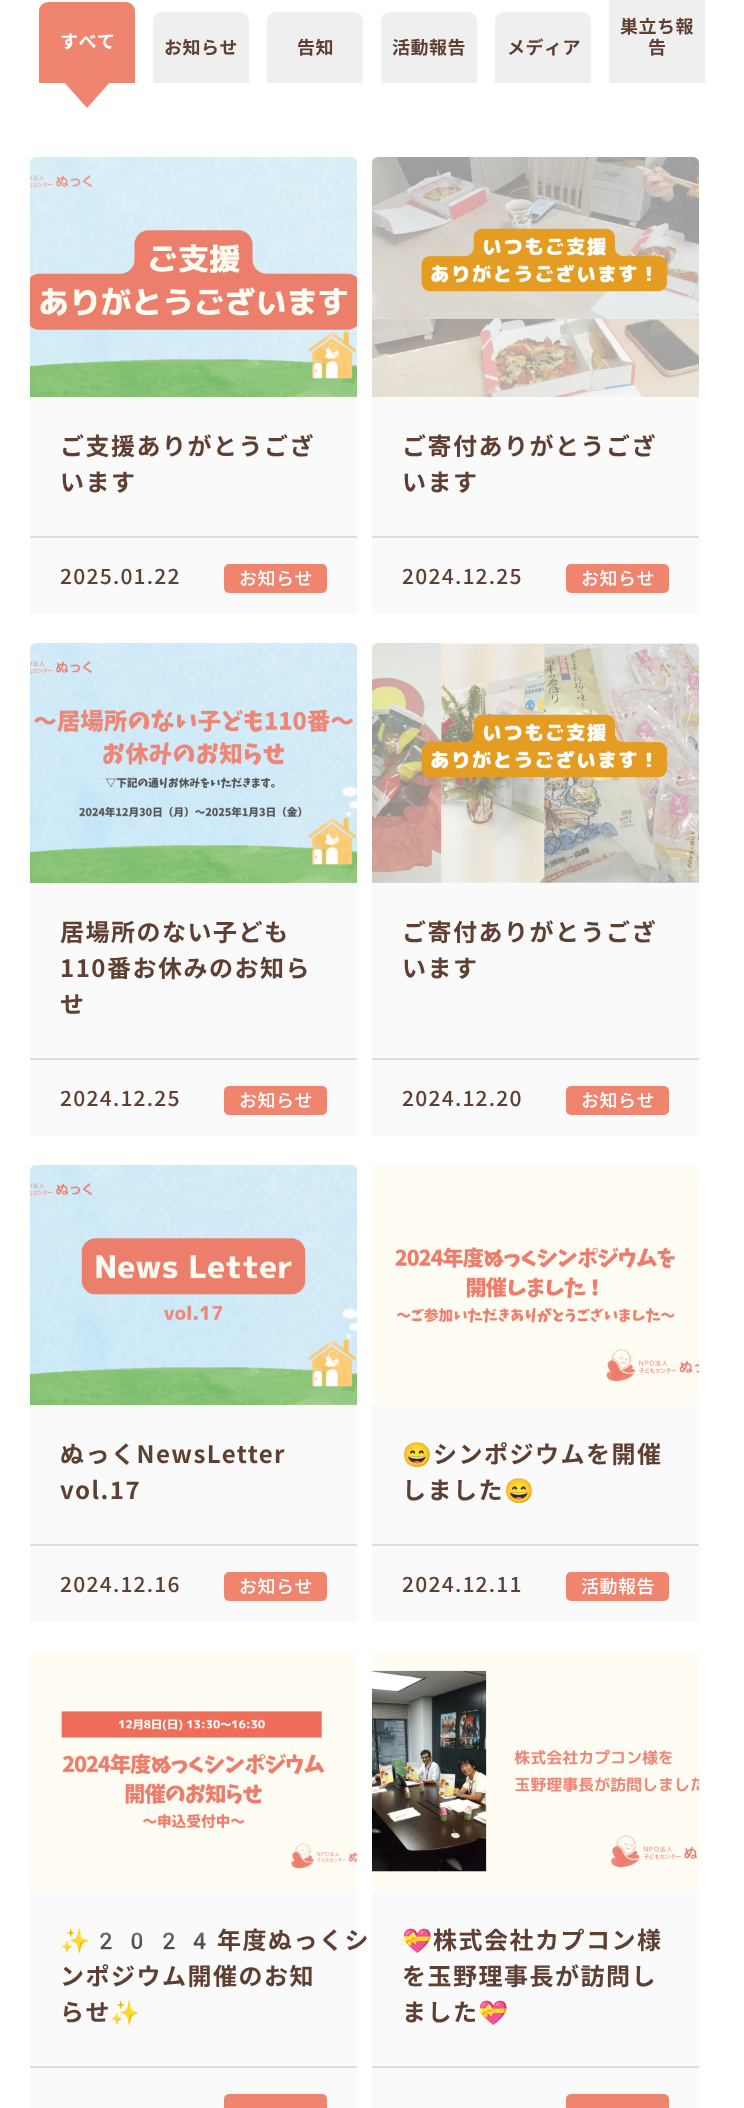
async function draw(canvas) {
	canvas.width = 744;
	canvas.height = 2108;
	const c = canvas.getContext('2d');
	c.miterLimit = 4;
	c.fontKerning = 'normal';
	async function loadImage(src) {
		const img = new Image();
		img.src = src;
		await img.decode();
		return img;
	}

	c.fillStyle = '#fff';
	c.fillRect(0, 0, 744, 2108);
	c.fillStyle = '#ef846f';
	c.beginPath();
	c.roundRect(39, 2, 96, 81, [9, 9, 0, 0]);
	c.fill();
	c.letterSpacing = '0.5px';
	c.font = 'bold 18px Noto Sans JP';
	c.fillStyle = '#fff';
	c.fillText('すべて', 60, 48);
	c.fillStyle = '#ef846f';
	c.beginPath();
	c.moveTo(63, 81);
	c.lineTo(111, 81);
	c.lineTo(87, 108);
	c.closePath();
	c.fill();
	c.fillStyle = '#efefef';
	c.beginPath();
	c.roundRect(153, 12, 96, 71, [9, 9, 0, 0]);
	c.fill();
	c.fillStyle = '#5e3f31';
	c.fillText('お知らせ', 164, 54);
	c.fillStyle = '#efefef';
	c.beginPath();
	c.roundRect(267, 12, 96, 71, [9, 9, 0, 0]);
	c.fill();
	c.fillStyle = '#5e3f31';
	c.fillText('告知', 297, 54);
	c.fillStyle = '#efefef';
	c.beginPath();
	c.roundRect(381, 12, 96, 71, [9, 9, 0, 0]);
	c.fill();
	c.fillStyle = '#5e3f31';
	c.fillText('活動報告', 392, 54);
	c.fillStyle = '#efefef';
	c.beginPath();
	c.roundRect(495, 12, 96, 71, [9, 9, 0, 0]);
	c.fill();
	c.fillStyle = '#5e3f31';
	c.fillText('メディア', 507, 54);
	c.fillStyle = '#efefef';
	c.fillRect(609, 0, 96, 83);
	c.fillStyle = '#5e3f31';
	c.fillText('巣立ち報', 620, 33);
	c.fillText('告', 648, 54);
	c.fillStyle = '#fafafa';
	c.fillRect(30, 158, 327, 456);
	c.drawImage(await loadImage('img1.png'), 30, 157, 327, 240);
	c.letterSpacing = '1.5px';
	c.font = 'bold 24px Noto Sans JP';
	c.fillStyle = '#5e3f31';
	c.fillText('ご支援ありがとうござ', 60, 455);
	c.fillText('います', 60, 491);
	c.fillStyle = '#ddd';
	c.fillRect(30, 536, 327, 2);
	c.letterSpacing = '1.25px';
	c.font = '500 21px Noto Sans JP';
	c.fillStyle = '#5e3f31';
	c.fillText('2025.01.22', 60, 584);
	c.fillStyle = '#ef846f';
	c.beginPath();
	c.roundRect(224, 564, 103, 29, 5);
	c.fill();
	c.letterSpacing = '0.5px';
	c.font = '500 18px Noto Sans JP';
	c.fillStyle = '#fff';
	c.fillText('お知らせ', 239, 585);
	c.fillStyle = '#fafafa';
	c.fillRect(372, 158, 327, 456);
	c.drawImage(await loadImage('img2.png'), 372, 157, 327, 240);
	c.letterSpacing = '1.5px';
	c.font = 'bold 24px Noto Sans JP';
	c.fillStyle = '#5e3f31';
	c.fillText('ご寄付ありがとうござ', 402, 455);
	c.fillText('います', 402, 491);
	c.fillStyle = '#ddd';
	c.fillRect(372, 536, 327, 2);
	c.letterSpacing = '1.25px';
	c.font = '500 21px Noto Sans JP';
	c.fillStyle = '#5e3f31';
	c.fillText('2024.12.25', 402, 584);
	c.fillStyle = '#ef846f';
	c.beginPath();
	c.roundRect(566, 564, 103, 29, 5);
	c.fill();
	c.letterSpacing = '0.5px';
	c.font = '500 18px Noto Sans JP';
	c.fillStyle = '#fff';
	c.fillText('お知らせ', 581, 585);
	c.fillStyle = '#fafafa';
	c.fillRect(30, 644, 327, 492);
	c.drawImage(await loadImage('img3.png'), 30, 643, 327, 240);
	c.letterSpacing = '1.5px';
	c.font = 'bold 24px Noto Sans JP';
	c.fillStyle = '#5e3f31';
	for (const [text, x, y] of [
		['居場所のない子ども', 60, 941],
		['110番お休みのお知ら', 60, 977],
		['せ', 60, 1013],
	]) {
		c.fillText(text, x, y);
	}
	c.fillStyle = '#ddd';
	c.fillRect(30, 1058, 327, 2);
	c.letterSpacing = '1.25px';
	c.font = '500 21px Noto Sans JP';
	c.fillStyle = '#5e3f31';
	c.fillText('2024.12.25', 60, 1106);
	c.fillStyle = '#ef846f';
	c.beginPath();
	c.roundRect(224, 1086, 103, 29, 5);
	c.fill();
	c.letterSpacing = '0.5px';
	c.font = '500 18px Noto Sans JP';
	c.fillStyle = '#fff';
	c.fillText('お知らせ', 239, 1107);
	c.fillStyle = '#fafafa';
	c.fillRect(372, 644, 327, 492);
	c.drawImage(await loadImage('img4.png'), 372, 643, 327, 240);
	c.letterSpacing = '1.5px';
	c.font = 'bold 24px Noto Sans JP';
	c.fillStyle = '#5e3f31';
	c.fillText('ご寄付ありがとうござ', 402, 941);
	c.fillText('います', 402, 977);
	c.fillStyle = '#ddd';
	c.fillRect(372, 1058, 327, 2);
	c.letterSpacing = '1.25px';
	c.font = '500 21px Noto Sans JP';
	c.fillStyle = '#5e3f31';
	c.fillText('2024.12.20', 402, 1106);
	c.fillStyle = '#ef846f';
	c.beginPath();
	c.roundRect(566, 1086, 103, 29, 5);
	c.fill();
	c.letterSpacing = '0.5px';
	c.font = '500 18px Noto Sans JP';
	c.fillStyle = '#fff';
	c.fillText('お知らせ', 581, 1107);
	c.fillStyle = '#fafafa';
	c.fillRect(30, 1166, 327, 456);
	c.drawImage(await loadImage('img5.png'), 30, 1165, 327, 240);
	c.letterSpacing = '1.5px';
	c.font = 'bold 24px Noto Sans JP';
	c.fillStyle = '#5e3f31';
	c.fillText('ぬっくNewsLetter', 60, 1463);
	c.fillText('vol.17', 60, 1499);
	c.fillStyle = '#ddd';
	c.fillRect(30, 1544, 327, 2);
	c.letterSpacing = '1.25px';
	c.font = '500 21px Noto Sans JP';
	c.fillStyle = '#5e3f31';
	c.fillText('2024.12.16', 60, 1592);
	c.fillStyle = '#ef846f';
	c.beginPath();
	c.roundRect(224, 1572, 103, 29, 5);
	c.fill();
	c.letterSpacing = '0.5px';
	c.font = '500 18px Noto Sans JP';
	c.fillStyle = '#fff';
	c.fillText('お知らせ', 239, 1593);
	c.fillStyle = '#fafafa';
	c.fillRect(372, 1166, 327, 456);
	c.drawImage(await loadImage('img6.png'), 372, 1165, 327, 240);
	c.letterSpacing = '1.5px';
	c.font = 'bold 24px Noto Color Emoji';
	c.fillStyle = '#5e3f31';
	c.fillText('😄', 402, 1463);
	c.font = 'bold 24px Noto Sans JP';
	c.fillText('シンポジウムを開催', 433, 1463);
	c.fillText('しました', 402, 1499);
	c.font = 'bold 24px Noto Color Emoji';
	c.fillText('😄', 504, 1499);
	c.fillStyle = '#ddd';
	c.fillRect(372, 1544, 327, 2);
	c.letterSpacing = '1.25px';
	c.font = '500 21px Noto Sans JP';
	c.fillStyle = '#5e3f31';
	c.fillText('2024.12.11', 402, 1592);
	c.fillStyle = '#ef846f';
	c.beginPath();
	c.roundRect(566, 1572, 103, 29, 5);
	c.fill();
	c.letterSpacing = '0.5px';
	c.font = '500 18px Noto Sans JP';
	c.fillStyle = '#fff';
	c.fillText('活動報告', 581, 1593);
	c.fillStyle = '#fafafa';
	c.fillRect(30, 1652, 327, 456);
	c.drawImage(await loadImage('img7.png'), 30, 1651, 327, 240);
	c.letterSpacing = '1.5px';
	c.font = 'bold 24px Noto Color Emoji';
	c.fillStyle = '#5e3f31';
	c.fillText('✨2024', 60, 1949);
	c.font = 'bold 24px Noto Sans JP';
	for (const [text, x, y] of [
		['年度ぬっくシ', 217, 1949],
		['ンポジウム開催のお知', 60, 1985],
		['らせ', 60, 2021],
	]) {
		c.fillText(text, x, y);
	}
	c.font = 'bold 24px Noto Color Emoji';
	c.fillText('✨', 110, 2021);
	c.fillStyle = '#ddd';
	c.fillRect(30, 2066, 327, 2);
	c.fillStyle = '#ef846f';
	c.beginPath();
	c.roundRect(224, 2094, 103, 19, 5);
	c.fill();
	c.fillStyle = '#fafafa';
	c.fillRect(372, 1652, 327, 456);
	c.drawImage(await loadImage('img8.png'), 372, 1651, 327, 240);
	c.fillStyle = '#5e3f31';
	c.fillText('💝', 402, 1949);
	c.font = 'bold 24px Noto Sans JP';
	for (const [text, x, y] of [
		['株式会社カプコン様', 433, 1949],
		['を玉野理事長が訪問し', 402, 1985],
		['ました', 402, 2021],
	]) {
		c.fillText(text, x, y);
	}
	c.font = 'bold 24px Noto Color Emoji';
	c.fillText('💝', 478, 2021);
	c.fillStyle = '#ddd';
	c.fillRect(372, 2066, 327, 2);
	c.fillStyle = '#ef846f';
	c.beginPath();
	c.roundRect(566, 2094, 103, 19, 5);
	c.fill();
}

draw(document.querySelector('canvas'));
